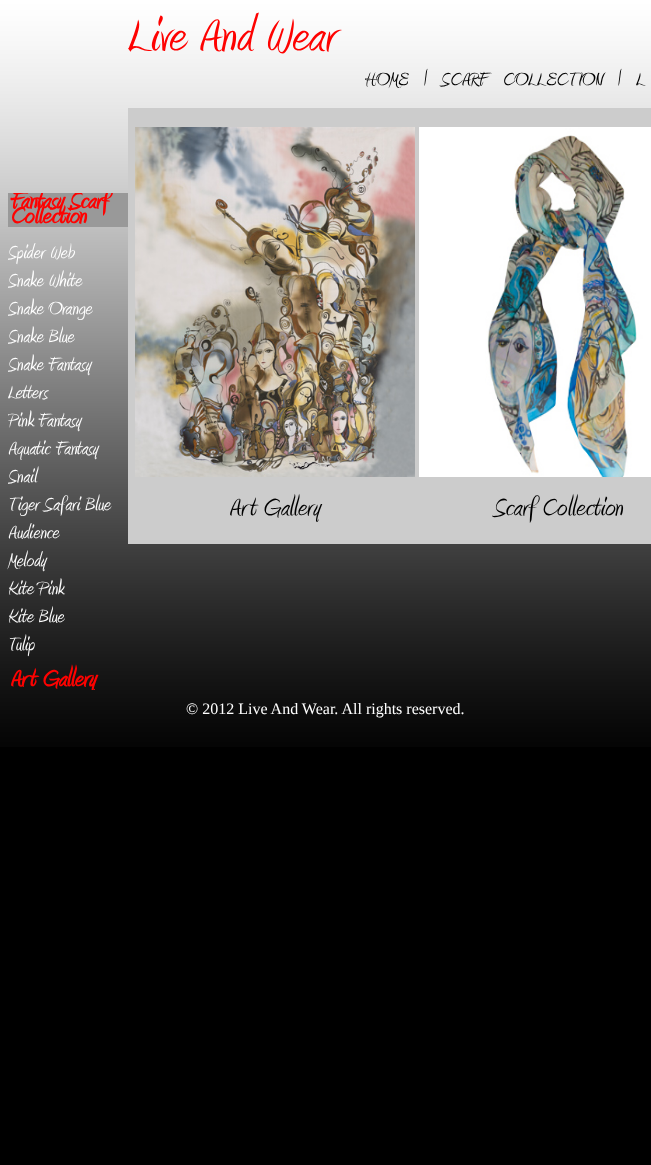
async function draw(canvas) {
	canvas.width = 651;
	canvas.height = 1165;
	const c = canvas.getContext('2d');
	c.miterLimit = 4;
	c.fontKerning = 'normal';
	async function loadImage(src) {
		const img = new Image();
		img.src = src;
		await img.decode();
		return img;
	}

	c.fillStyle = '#000';
	c.fillRect(0, 0, 651, 1165);
	c.drawImage(await loadImage('img1.png'), 0, 0, 651, 747);
	c.font = '60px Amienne';
	c.fillStyle = '#fe0201';
	c.fillText('Live And Wear', 128, 50);
	c.font = '24px Amienne';
	c.fillStyle = '#000';
	c.fillText('HOME', 365, 85);
	c.fillText('|', 423, 85);
	c.wordSpacing = '10px';
	c.fillText('SCARF COLLECTION', 441, 85);
	c.wordSpacing = '0px';
	c.fillText('|', 617, 85);
	c.wordSpacing = '10px';
	c.fillText('L', 636, 85);
	c.fillStyle = '#999';
	c.fillRect(8, 193, 120, 34);
	c.save();
	c.beginPath();
	c.rect(8, 193, 120, 497);
	c.clip();
	c.wordSpacing = '0px';
	c.font = 'bold 30px Amienne';
	c.fillStyle = '#fe0201';
	c.fillText('Fantasy Scarf', 10, 208);
	c.restore();
	c.wordSpacing = '0px';
	c.font = 'bold 30px Amienne';
	c.fillStyle = '#fe0201';
	c.fillText('Collection', 10, 223);
	c.save();
	c.beginPath();
	c.rect(8, 227, 120, 444);
	c.clip();
	c.font = '24px Amienne';
	c.fillStyle = '#fff';
	for (const [text, x, y] of [
		['Spider Web', 8, 258],
		['Snake White', 8, 286],
		['Snake Orange', 8, 314],
		['Snake Blue', 8, 342],
		['Snake Fantasy', 8, 370],
	]) {
		c.fillText(text, x, y);
	}
	c.restore();
	c.font = '24px Amienne';
	c.fillStyle = '#fff';
	c.fillText('Letters', 8, 398);
	c.save();
	c.beginPath();
	c.rect(8, 227, 120, 444);
	c.clip();
	c.fillText('Pink Fantasy', 8, 426);
	c.restore();
	c.fillText('Aquatic Fantasy', 8, 454);
	c.save();
	c.beginPath();
	c.rect(8, 227, 120, 444);
	c.clip();
	c.fillText('Snail', 8, 482);
	c.restore();
	for (const [text, x, y] of [
		['Tiger Safari Blue', 8, 510],
		['Audience', 8, 538],
		['Melody', 8, 566],
		['Kite Pink', 8, 594],
		['Kite Blue', 8, 622],
		['Tulip', 8, 650],
	]) {
		c.fillText(text, x, y);
	}
	c.save();
	c.beginPath();
	c.rect(8, 193, 120, 497);
	c.clip();
	c.font = 'bold 30px Amienne';
	c.fillStyle = '#fe0201';
	c.fillText('Art Gallery', 10, 686);
	c.restore();
	c.fillStyle = '#ccc';
	c.fillRect(128, 108, 523, 436);
	c.drawImage(await loadImage('img2.png'), 135, 127, 280, 350);
	c.font = '32px Amienne';
	c.fillStyle = '#000';
	c.fillText('Art Gallery', 229, 515);
	c.drawImage(await loadImage('img3.png'), 419, 127, 232, 350);
	c.fillText('Scarf Collection', 494, 515);
	c.font = '16px Liberation Serif';
	c.fillStyle = '#fff';
	c.fillText('© 2012 Live And Wear. All rights reserved.', 186, 714);
}

draw(document.querySelector('canvas'));
